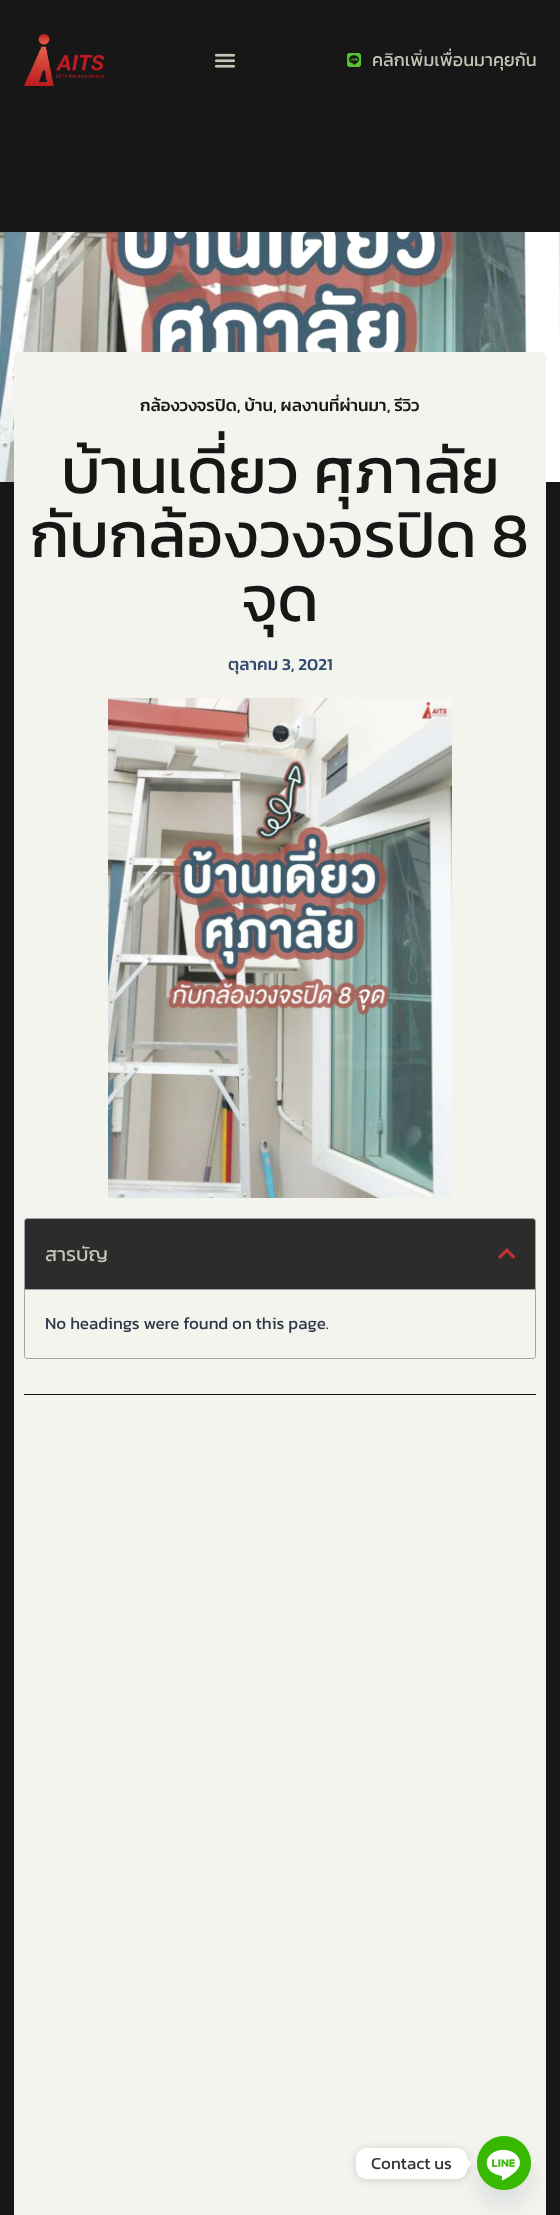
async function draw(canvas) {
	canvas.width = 560;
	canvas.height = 2215;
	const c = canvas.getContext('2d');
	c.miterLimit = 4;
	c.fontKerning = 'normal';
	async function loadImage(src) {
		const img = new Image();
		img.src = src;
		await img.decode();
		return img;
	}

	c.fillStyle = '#171717';
	c.fillRect(0, 0, 560, 2215);
	c.drawImage(await loadImage('img1.png'), 24, 34, 80, 52);
	c.drawImage(await loadImage('img2.png'), 214, 53, 22, 15);
	c.drawImage(await loadImage('img3.png'), 347, 53, 15, 14);
	c.font = '18px Kanit';
	c.fillStyle = '#c5c4b5';
	c.fillText('คลิกเพิ่มเพื่อนมาคุยกัน', 372, 66);
	c.drawImage(await loadImage('img4.png'), 0, 232, 560, 250);
	c.fillStyle = '#f4f4ef';
	c.beginPath();
	c.roundRect(14, 352, 532, 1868, 5);
	c.fill();
	c.font = '500 17px Kanit';
	c.fillStyle = '#171717';
	c.fillText('กล้องวงจรปิด, บ้าน, ผลงานที่ผ่านมา, รีวิว', 140, 411);
	c.font = '64px Kanit';
	for (const [text, x, y] of [
		['บ้านเดี่ยว ศุภาลัย', 61, 493],
		['กับกล้องวงจรปิด 8', 30, 557],
		['จุด', 241, 621],
	]) {
		c.fillText(text, x, y);
	}
	c.font = '500 17px Kanit';
	c.fillStyle = '#324a6d';
	c.fillText('ตุลาคม 3, 2021', 228, 670);
	c.drawImage(await loadImage('img5.png'), 108, 698, 344, 500);
	c.beginPath();
	c.roundRect(24.5, 1218.5, 511, 140, 2.5);
	c.strokeStyle = '#9da5ae';
	c.stroke();
	c.fillStyle = '#2d2c2c';
	c.beginPath();
	c.roundRect(25, 1219, 510, 71, [2, 2, 0, 0]);
	c.fill();
	c.fillStyle = '#9da5ae';
	c.fillRect(25, 1289, 510, 1);
	c.font = '20px Kanit';
	c.fillStyle = '#c5c4b5';
	c.fillText('สารบัญ', 45, 1261);
	c.drawImage(await loadImage('img6.png'), 498, 1248, 18, 11);
	c.font = '17px Kanit';
	c.fillStyle = '#2d3748';
	c.fillText('No headings were found on this page.', 45, 1329);
	c.fillStyle = '#171717';
	c.fillRect(24, 1394, 512, 1);
	c.fillStyle = '#49687e29';
	c.filter = 'blur(12px)';
	c.beginPath();
	c.roundRect(477, 2152, 54, 54, 27);
	c.fill();
	c.filter = 'none';
	c.drawImage(await loadImage('img7.png'), 477, 2136, 54, 54);
	c.fillStyle = '#00000026';
	c.filter = 'blur(4px)';
	c.beginPath();
	c.roundRect(356, 2149, 111, 31, 10);
	c.fill();
	c.filter = 'none';
	c.fillStyle = '#fff';
	c.beginPath();
	c.roundRect(356, 2148, 111, 31, 10);
	c.fill();
	c.fillStyle = '#333';
	c.fillText('Contact us', 371, 2169);
	c.fillStyle = '#fff';
	c.beginPath();
	c.moveTo(467, 2168.5);
	c.lineTo(467, 2158.5);
	c.lineTo(472, 2163.5);
	c.closePath();
	c.fill();
}

draw(document.querySelector('canvas'));
